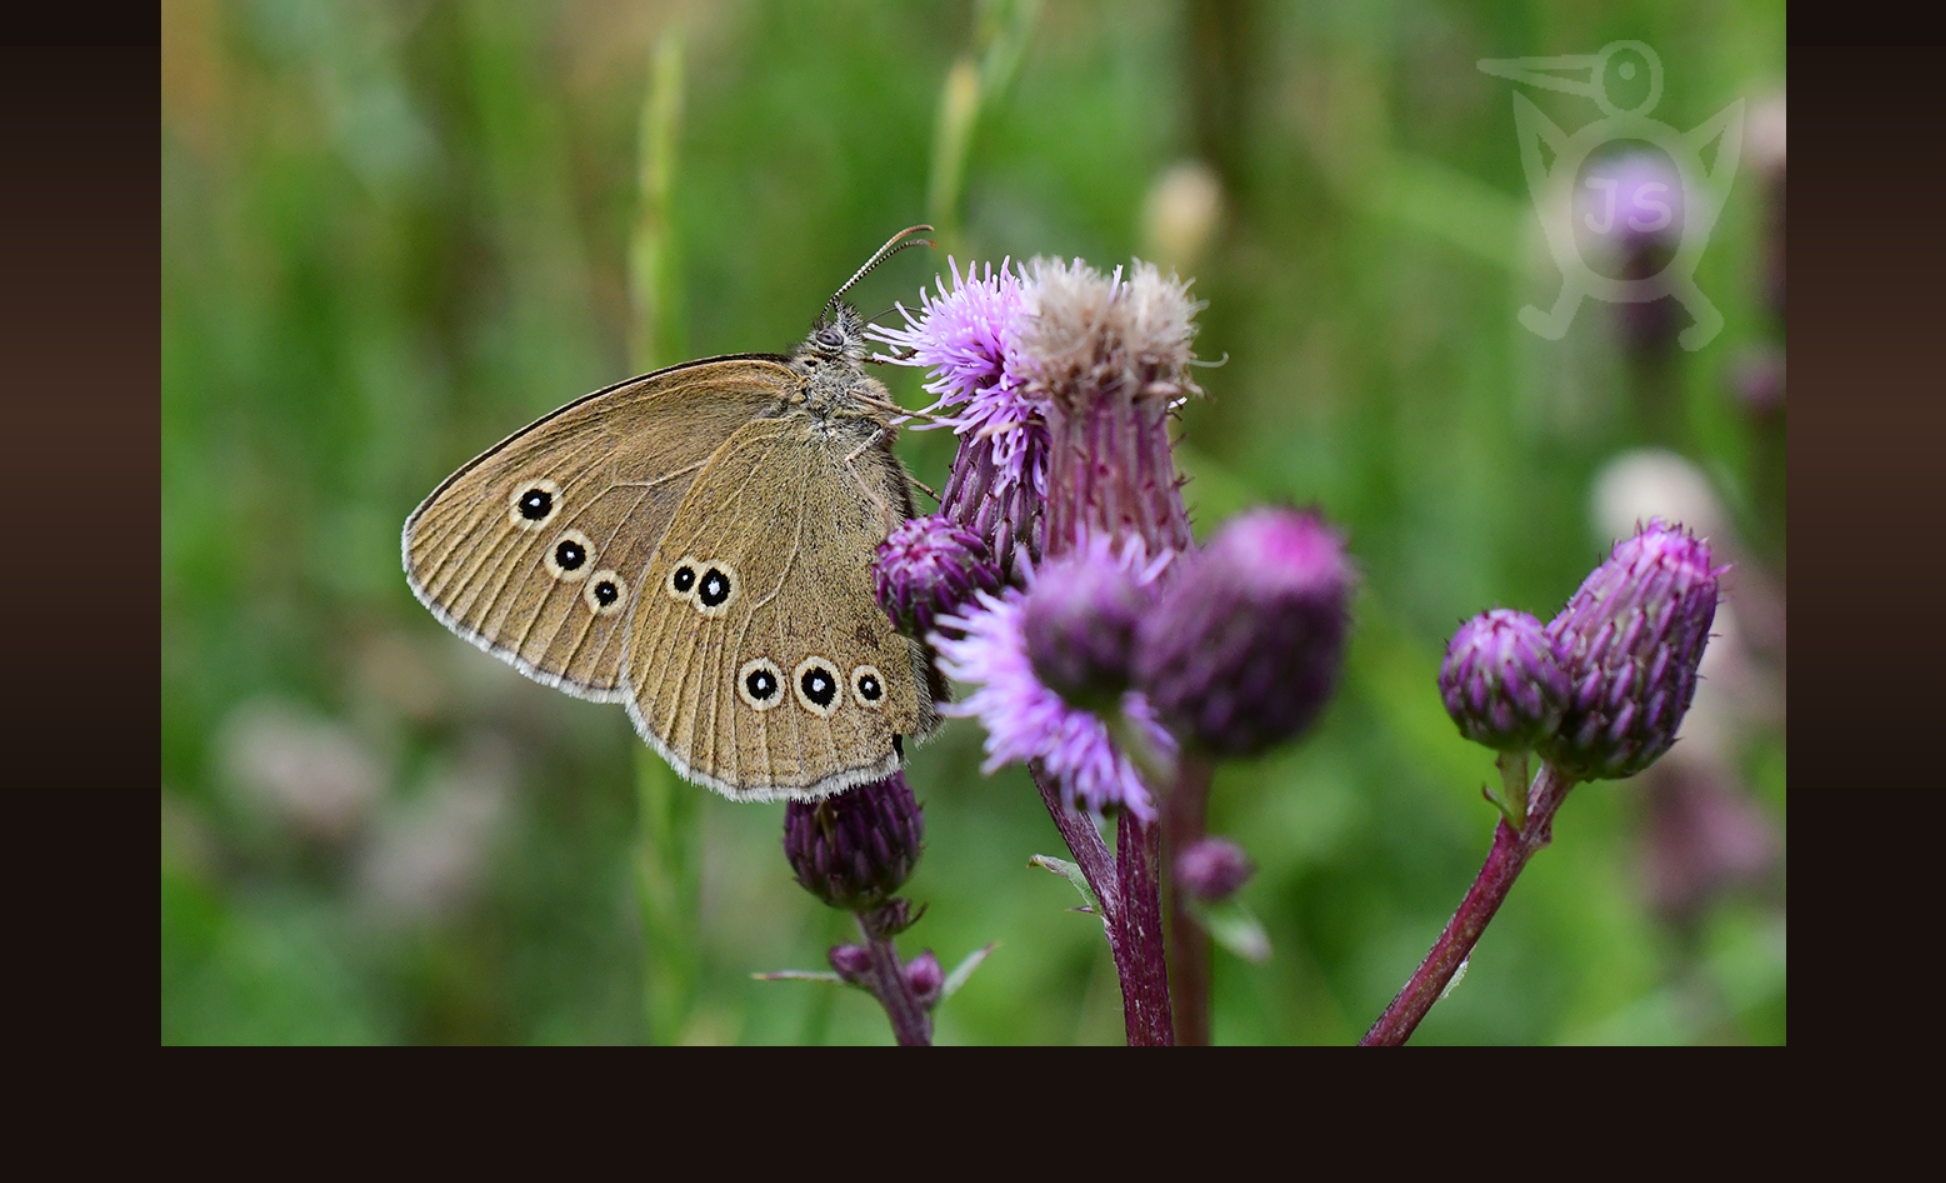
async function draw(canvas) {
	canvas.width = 1946;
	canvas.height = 1183;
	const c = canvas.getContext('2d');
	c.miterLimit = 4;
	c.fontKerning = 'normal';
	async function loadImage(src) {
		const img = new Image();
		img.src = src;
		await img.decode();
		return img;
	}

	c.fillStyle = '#17100c';
	c.fillRect(0, 0, 1946, 1183);
	c.drawImage(await loadImage('img1.png'), 0, 46, 1946, 742);
	c.drawImage(await loadImage('img2.png'), 161, 0, 1626, 1047);
}

draw(document.querySelector('canvas'));
